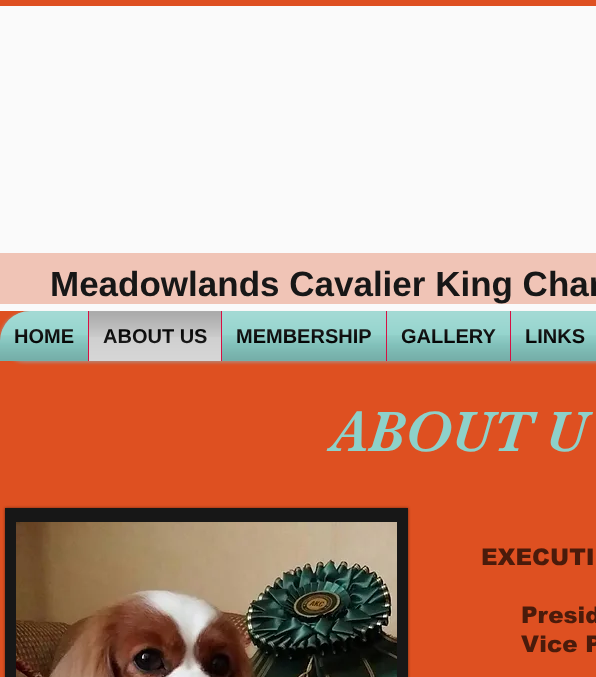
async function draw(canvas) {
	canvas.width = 596;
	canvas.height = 677;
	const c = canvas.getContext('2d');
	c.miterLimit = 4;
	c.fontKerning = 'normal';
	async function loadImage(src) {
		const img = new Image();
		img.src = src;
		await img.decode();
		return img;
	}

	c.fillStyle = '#de5021';
	c.fillRect(0, 0, 596, 677);
	c.fillStyle = '#fafafa';
	c.fillRect(0, 6, 596, 305);
	c.fillStyle = '#f0c4b6';
	c.fillRect(0, 253, 596, 51);
	c.font = 'bold 35px Liberation Sans';
	c.fillStyle = '#171717';
	c.fillText('Meadowlands Cavalier King Char', 50, 296);
	c.fillStyle = '#a29e9e99';
	c.filter = 'blur(1.5px)';
	c.beginPath();
	c.roundRect(0, 313, 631, 50, 30);
	c.fill();
	c.filter = 'none';
	c.drawImage(await loadImage('img1.png'), 1, 311, 29, 23);
	c.drawImage(await loadImage('img2.png'), 0, 339, 1, 2);
	c.fillStyle = '#8dd1ca';
	c.beginPath();
	c.roundRect(0, 311, 88, 50, [30, 0, 0, 0]);
	c.fill();
	c.font = 'bold 20px Liberation Sans';
	c.fillStyle = '#000';
	c.fillText('HOME', 14, 343);
	c.drawImage(await loadImage('img3.png'), 0, 311, 88, 32);
	c.drawImage(await loadImage('img4.png'), 0, 335, 88, 26);
	c.fillStyle = '#ccc';
	c.fillRect(89, 311, 132, 50);
	c.fillStyle = '#d61043';
	c.fillRect(88, 311, 1, 50);
	c.fillStyle = '#000';
	c.fillText('ABOUT US', 103, 343);
	c.drawImage(await loadImage('img5.png'), 89, 311, 132, 26);
	c.drawImage(await loadImage('img6.png'), 89, 329, 132, 32);
	c.fillStyle = '#8dd1ca';
	c.fillRect(222, 311, 164, 50);
	c.fillStyle = '#d61043';
	c.fillRect(221, 311, 1, 50);
	c.fillStyle = '#000';
	c.fillText('MEMBERSHIP', 236, 343);
	c.drawImage(await loadImage('img7.png'), 222, 311, 164, 32);
	c.drawImage(await loadImage('img8.png'), 222, 335, 164, 26);
	c.fillStyle = '#8dd1ca';
	c.fillRect(387, 311, 123, 50);
	c.fillStyle = '#d61043';
	c.fillRect(386, 311, 1, 50);
	c.fillStyle = '#000';
	c.fillText('GALLERY', 401, 343);
	c.drawImage(await loadImage('img9.png'), 387, 311, 123, 32);
	c.drawImage(await loadImage('img10.png'), 387, 335, 123, 26);
	c.fillStyle = '#8dd1ca';
	c.fillRect(511, 311, 85, 50);
	c.fillStyle = '#d61043';
	c.fillRect(510, 311, 1, 50);
	c.fillStyle = '#000';
	c.fillText('LINKS', 525, 343);
	c.drawImage(await loadImage('img11.png'), 511, 311, 85, 32);
	c.drawImage(await loadImage('img12.png'), 511, 335, 85, 26);
	c.font = '59px "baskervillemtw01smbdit"';
	c.fillStyle = '#8dd1ca';
	c.fillText('ABOUT U', 331, 451);
	c.fillStyle = '#00000080';
	c.filter = 'blur(1.5px)';
	c.beginPath();
	c.rect(5, 508, 403, 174);
	c.fill();
	c.filter = 'none';
	c.fillStyle = '#171717';
	c.fillRect(5, 508, 403, 169);
	c.drawImage(await loadImage('img13.png'), 16, 522, 381, 155);
	c.font = '900 23px arial';
	c.fillStyle = '#4a1b0b';
	for (const [text, x, y] of [
		['EXECUTI', 481, 565],
		['Presid', 521, 623],
		['Vice P', 521, 652],
	]) {
		c.fillText(text, x, y);
	}
}

draw(document.querySelector('canvas'));
